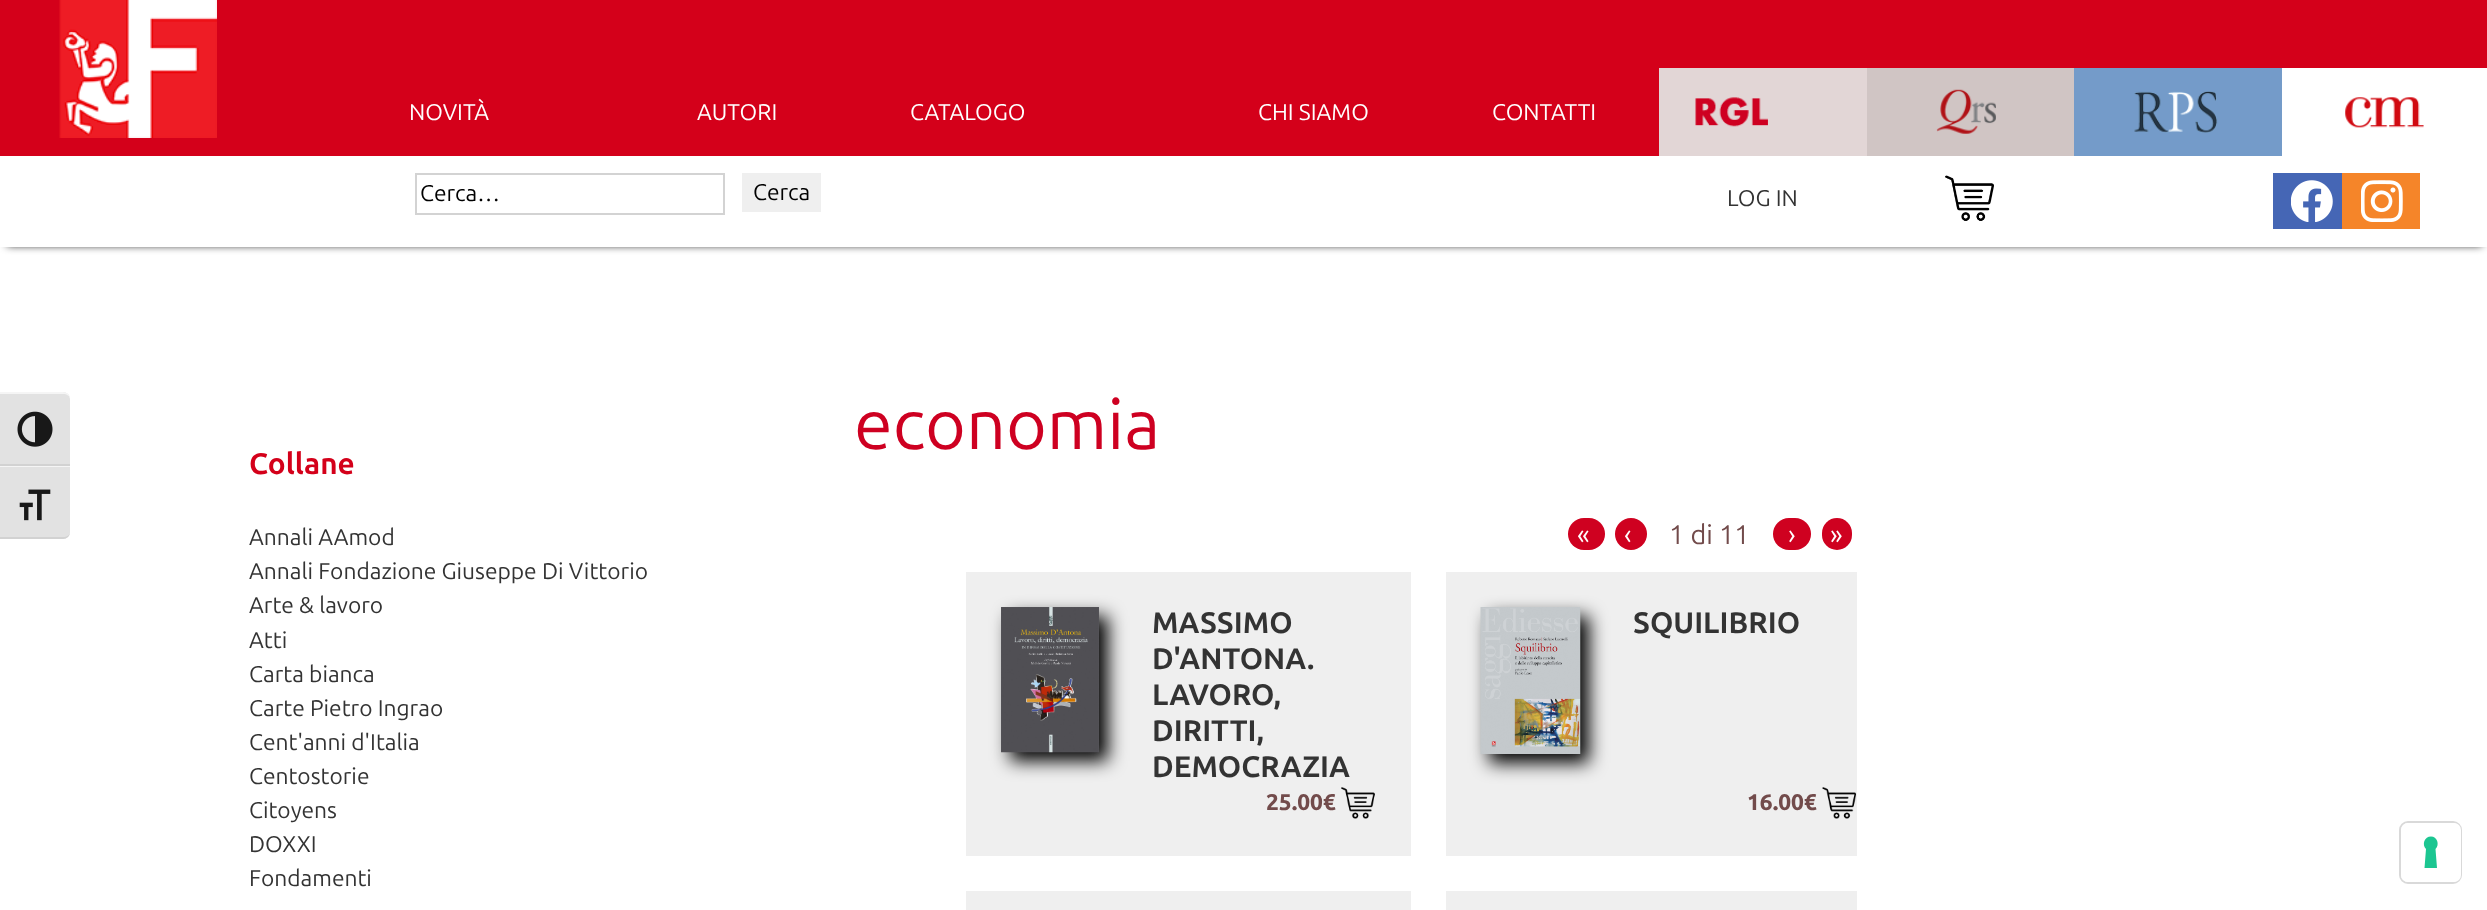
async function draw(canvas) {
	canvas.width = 2487;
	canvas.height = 910;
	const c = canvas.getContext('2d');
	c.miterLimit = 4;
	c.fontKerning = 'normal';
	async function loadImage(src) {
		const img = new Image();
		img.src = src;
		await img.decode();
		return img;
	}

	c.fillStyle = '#fff';
	c.fillRect(0, 0, 2487, 910);
	c.fillStyle = '#e2e2e2';
	c.beginPath();
	c.roundRect(0, 392, 70, 74, [0, 7, 0, 0]);
	c.fill();
	c.fillStyle = '#f5f5f5';
	c.beginPath();
	c.moveTo(0, 392);
	c.lineTo(0, 394);
	c.lineTo(63, 394);
	c.bezierCurveTo(67, 394, 70, 396, 70, 399);
	c.bezierCurveTo(70, 395, 67, 392, 63, 392);
	c.closePath();
	c.fill();
	c.fillStyle = '#d2d2d2';
	c.fillRect(0, 464, 70, 2);
	c.drawImage(await loadImage('img1.png'), 17, 411, 36, 36);
	c.fillStyle = '#e2e2e2';
	c.beginPath();
	c.roundRect(0, 466, 70, 73, [0, 0, 7, 0]);
	c.fill();
	c.fillStyle = '#f5f5f5';
	c.fillRect(0, 466, 70, 1);
	c.fillStyle = '#d2d2d2';
	c.beginPath();
	c.moveTo(0, 537);
	c.lineTo(0, 539);
	c.lineTo(63, 539);
	c.bezierCurveTo(67, 539, 70, 536, 70, 532);
	c.bezierCurveTo(70, 535, 67, 537, 63, 537);
	c.closePath();
	c.fill();
	c.drawImage(await loadImage('img2.png'), 19, 489, 32, 32);
	c.fillStyle = '#d4001a';
	c.fillRect(0, 0, 2487, 156);
	c.drawImage(await loadImage('img3.png'), 59, 0, 158, 138);
	c.font = '22.75px Ubuntu';
	c.fillStyle = '#fff';
	for (const [text, x, y] of [
		['NOVITÀ', 409, 120],
		['AUTORI', 697, 120],
		['CATALOGO', 910, 120],
		['CHI SIAMO', 1258, 120],
		['CONTATTI', 1492, 120],
	]) {
		c.fillText(text, x, y);
	}
	c.fillStyle = '#e2d6d6';
	c.fillRect(1659, 68, 208, 88);
	c.drawImage(await loadImage('img4.png'), 1695, 97, 73, 30);
	c.fillStyle = '#d0c5c4';
	c.fillRect(1867, 68, 207, 88);
	c.drawImage(await loadImage('img5.png'), 1936, 89, 60, 45);
	c.fillStyle = '#749bc9';
	c.fillRect(2074, 68, 208, 88);
	c.drawImage(await loadImage('img6.png'), 2134, 91, 84, 42);
	c.fillStyle = '#fff';
	c.fillRect(2282, 68, 205, 88);
	c.drawImage(await loadImage('img7.png'), 2345, 97, 79, 31);
	c.save();
	c.beginPath();
	c.moveTo(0, 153);
	c.lineTo(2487, 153);
	c.lineTo(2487, 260);
	c.lineTo(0, 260);
	c.closePath();
	c.moveTo(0, 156);
	c.lineTo(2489, 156);
	c.lineTo(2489, 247);
	c.lineTo(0, 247);
	c.closePath();
	c.clip('evenodd');
	c.fillStyle = '#000';
	c.filter = 'blur(4.5px)';
	c.beginPath();
	c.rect(7, 168, 2475, 77);
	c.fill();
	c.filter = 'none';
	c.restore();
	c.strokeStyle = '#d3d3d3';
	c.lineWidth = 2;
	c.strokeRect(416, 174, 308, 40);
	c.fillStyle = '#000';
	c.fillText('Cerca…', 420, 201);
	c.fillStyle = '#efefef';
	c.fillRect(742, 173, 79, 39);
	c.fillStyle = '#000';
	c.fillText('Cerca', 753, 200);
	c.fillStyle = '#333';
	c.fillText('LOG IN', 1727, 206);
	c.drawImage(await loadImage('img8.png'), 1945, 175, 49, 46);
	c.fillStyle = '#4566b5';
	c.fillRect(2273, 173, 69, 56);
	c.drawImage(await loadImage('img9.png'), 2291, 180, 42, 42);
	c.fillStyle = '#f58529';
	c.fillRect(2342, 173, 78, 56);
	c.drawImage(await loadImage('img10.png'), 2361, 180, 42, 42);
	c.font = 'bold 29.75px Ubuntu';
	c.fillStyle = '#d4001a';
	c.fillText('Collane', 249, 474);
	c.font = '22.75px Ubuntu';
	c.fillStyle = '#333';
	for (const [text, x, y] of [
		['Annali AAmod', 249, 545],
		['Annali Fondazione Giuseppe Di Vittorio', 249, 579],
		['Arte & lavoro', 249, 613],
		['Atti', 249, 648],
		['Carta bianca', 249, 682],
		['Carte Pietro Ingrao', 249, 716],
		['Cent\'anni d\'Italia', 249, 750],
		['Centostorie', 249, 784],
		['Citoyens', 249, 818],
		['DOXXI', 249, 852],
		['Fondamenti', 249, 886],
	]) {
		c.fillText(text, x, y);
	}
	c.font = '70px Ubuntu';
	c.fillStyle = '#ce0021';
	c.fillText('economia', 854, 449);
	c.fillStyle = '#cf0120';
	c.beginPath();
	c.roundRect(1568, 518, 37, 32, 16);
	c.fill();
	c.font = '27px Ubuntu';
	c.fillStyle = '#fff';
	c.fillText('«', 1577, 544);
	c.fillStyle = '#cf0120';
	c.beginPath();
	c.arc(1631, 534, 16, 0, 2 * Math.PI);
	c.fill();
	c.fillStyle = '#fff';
	c.fillText('‹', 1624, 544);
	c.fillStyle = '#724b4b';
	c.fillText('1 di 11', 1669, 544);
	c.fillStyle = '#cf0120';
	c.beginPath();
	c.roundRect(1773, 518, 38, 32, 16);
	c.fill();
	c.fillStyle = '#fff';
	c.fillText('›', 1788, 544);
	c.fillStyle = '#cf0120';
	c.beginPath();
	c.roundRect(1822, 518, 30, 32, 15);
	c.fill();
	c.fillStyle = '#fff';
	c.fillText('»', 1830, 544);
	c.fillStyle = '#efefef';
	c.fillRect(966, 572, 445, 284);
	c.fillStyle = '#000';
	c.filter = 'blur(9px)';
	c.beginPath();
	c.rect(1010, 616, 98, 145);
	c.fill();
	c.filter = 'none';
	c.drawImage(await loadImage('img11.png'), 1001, 607, 98, 146);
	c.font = 'bold 29.75px Ubuntu';
	c.fillStyle = '#333';
	for (const [text, x, y] of [
		['MASSIMO', 1152, 633],
		['D\'ANTONA.', 1152, 669],
		['LAVORO,', 1152, 705],
		['DIRITTI,', 1152, 741],
		['DEMOCRAZIA', 1152, 777],
	]) {
		c.fillText(text, x, y);
	}
	c.font = '800 22.75px Ubuntu';
	c.fillStyle = '#724b4b';
	c.fillText('25.00€', 1266, 810);
	c.drawImage(await loadImage('img12.png'), 1341, 787, 34, 32);
	c.fillStyle = '#efefef';
	c.fillRect(1446, 572, 411, 284);
	c.fillStyle = '#000';
	c.filter = 'blur(9px)';
	c.beginPath();
	c.rect(1489, 616, 100, 147);
	c.fill();
	c.filter = 'none';
	c.drawImage(await loadImage('img13.png'), 1480, 607, 101, 147);
	c.font = 'bold 29.75px Ubuntu';
	c.fillStyle = '#333';
	c.fillText('SQUILIBRIO', 1633, 633);
	c.font = '800 22.75px Ubuntu';
	c.fillStyle = '#724b4b';
	c.fillText('16.00€', 1747, 810);
	c.drawImage(await loadImage('img14.png'), 1822, 787, 34, 32);
	c.fillStyle = '#efefef';
	c.fillRect(966, 891, 445, 19);
	c.fillRect(1446, 891, 411, 19);
	c.beginPath();
	c.roundRect(2400, 822, 61, 61, 8);
	c.strokeStyle = '#d9d9d9';
	c.stroke();
	c.fillStyle = '#fff';
	c.beginPath();
	c.roundRect(2401, 823, 60, 59, 7);
	c.fill();
	c.fillStyle = '#1cc691';
	c.beginPath();
	c.moveTo(2431, 836.5);
	c.bezierCurveTo(2437, 836.5, 2440, 844.5, 2435.5, 849);
	c.lineTo(2437, 868);
	c.lineTo(2424.5, 868);
	c.lineTo(2426, 849);
	c.bezierCurveTo(2421.5, 844.5, 2424.5, 836.5, 2431, 836.5);
	c.closePath();
	c.fill('evenodd');
}

draw(document.querySelector('canvas'));
